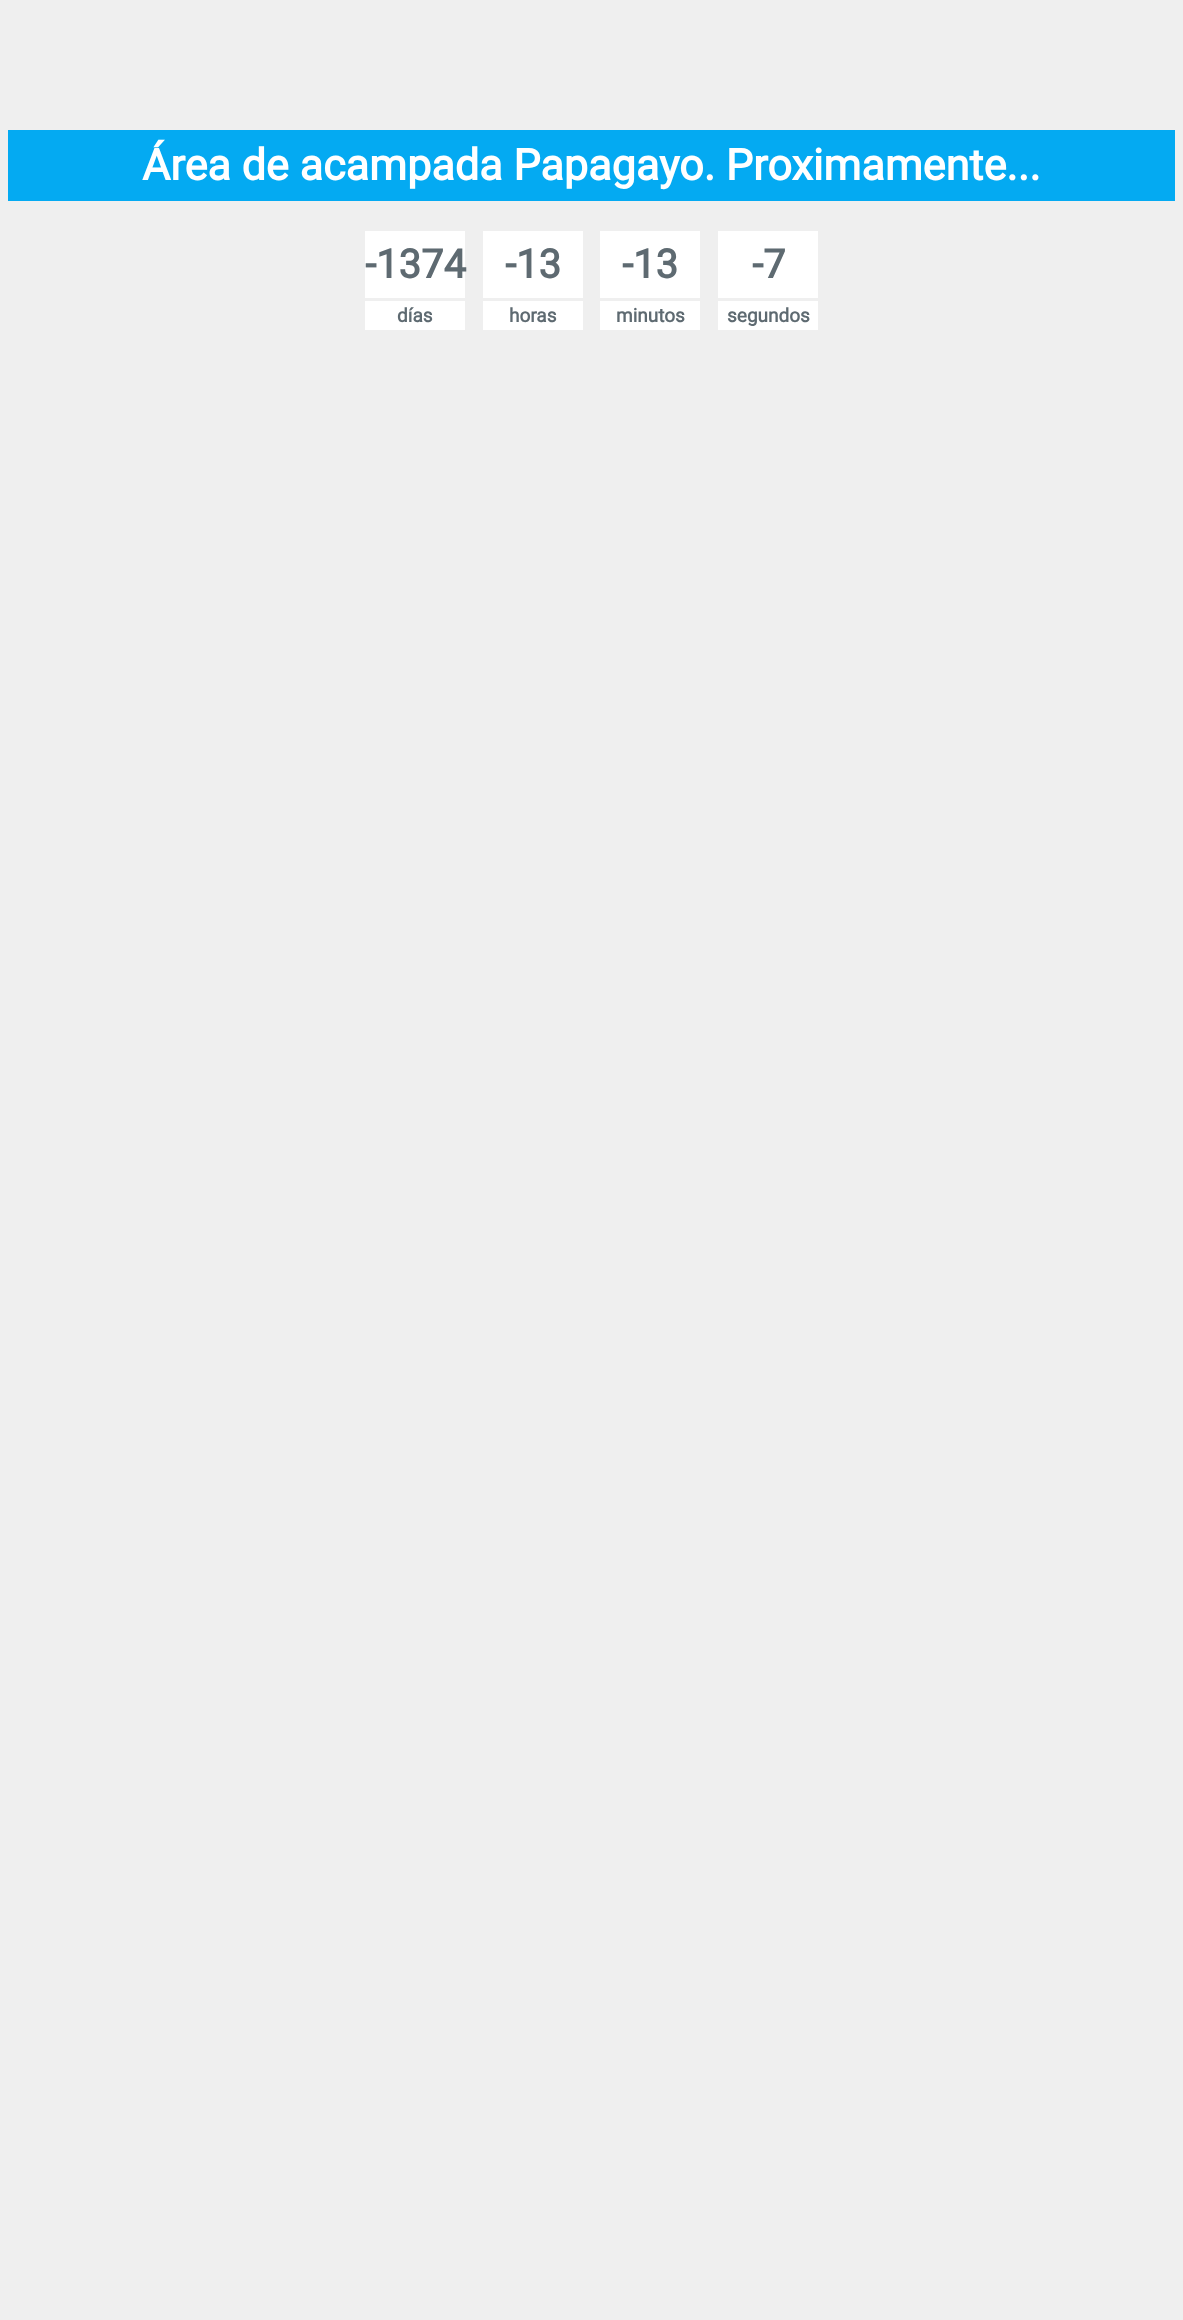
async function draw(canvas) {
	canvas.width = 1183;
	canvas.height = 2320;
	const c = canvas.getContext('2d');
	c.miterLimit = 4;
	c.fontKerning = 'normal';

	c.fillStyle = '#efefef';
	c.fillRect(0, 0, 1183, 2320);
	c.fillStyle = '#04aaf2';
	c.fillRect(8, 130, 1167, 71);
	c.font = 'bold 43.2px Roboto';
	c.fillStyle = '#fff';
	c.fillText('Área de acampada Papagayo. Proximamente...', 142, 180);
	c.fillRect(365, 231, 100, 67);
	c.font = 'bold 40px Roboto';
	c.fillStyle = '#5e6a71';
	c.fillText('-1374', 365, 278);
	c.fillStyle = '#fff';
	c.fillRect(365, 301, 100, 29);
	c.font = 'bold 19px Roboto';
	c.fillStyle = '#5e6a71';
	c.fillText('días', 397, 322);
	c.fillStyle = '#fff';
	c.fillRect(483, 231, 100, 67);
	c.font = 'bold 40px Roboto';
	c.fillStyle = '#5e6a71';
	c.fillText('-13', 505, 278);
	c.fillStyle = '#fff';
	c.fillRect(483, 301, 100, 29);
	c.font = 'bold 19px Roboto';
	c.fillStyle = '#5e6a71';
	c.fillText('horas', 509, 322);
	c.fillStyle = '#fff';
	c.fillRect(600, 231, 100, 67);
	c.font = 'bold 40px Roboto';
	c.fillStyle = '#5e6a71';
	c.fillText('-13', 622, 278);
	c.fillStyle = '#fff';
	c.fillRect(600, 301, 100, 29);
	c.font = 'bold 19px Roboto';
	c.fillStyle = '#5e6a71';
	c.fillText('minutos', 616, 322);
	c.fillStyle = '#fff';
	c.fillRect(718, 231, 100, 67);
	c.font = 'bold 40px Roboto';
	c.fillStyle = '#5e6a71';
	c.fillText('-7', 752, 278);
	c.fillStyle = '#fff';
	c.fillRect(718, 301, 100, 29);
	c.font = 'bold 19px Roboto';
	c.fillStyle = '#5e6a71';
	c.fillText('segundos', 727, 322);
}

draw(document.querySelector('canvas'));
